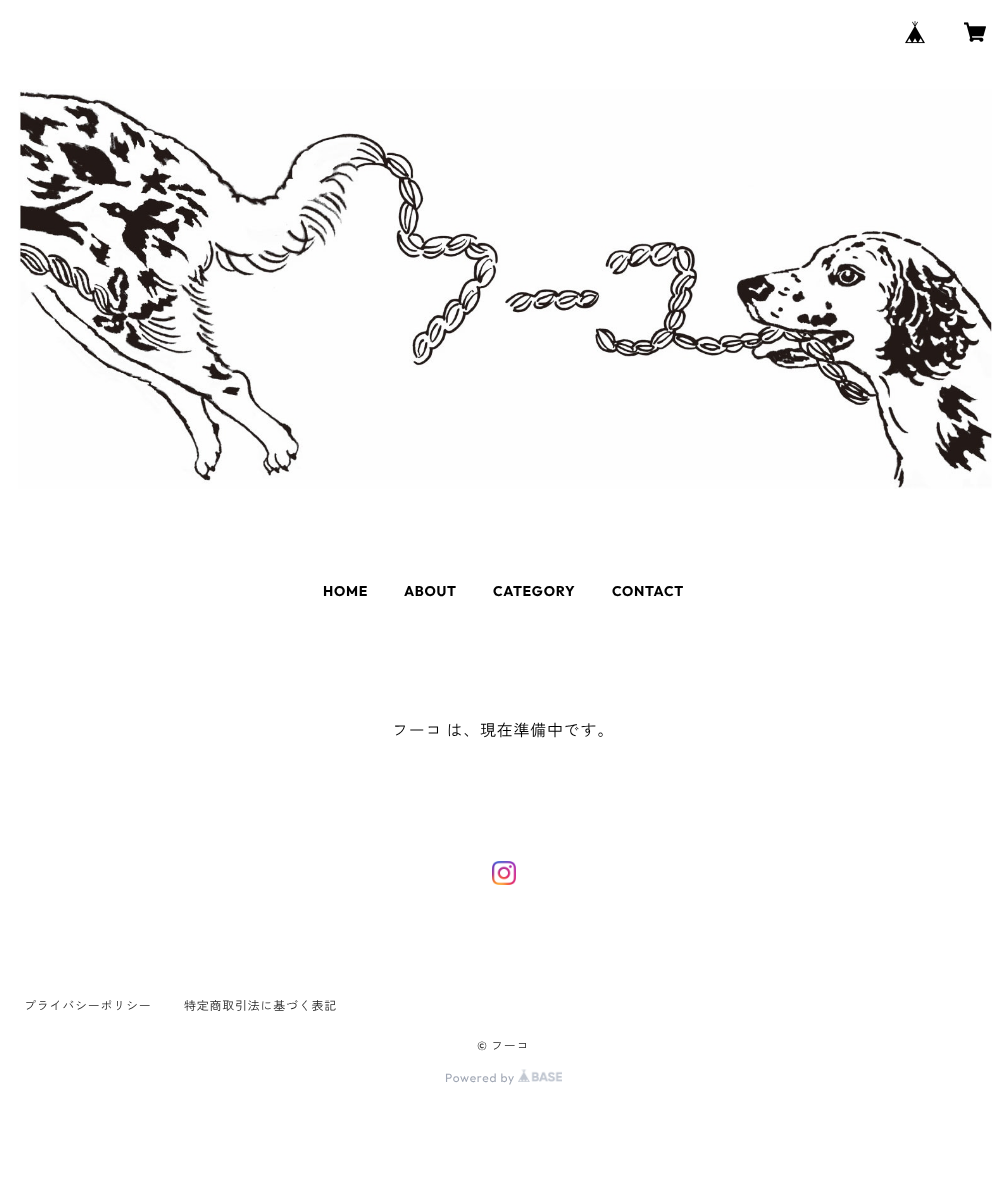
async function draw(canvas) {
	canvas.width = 1007;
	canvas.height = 1187;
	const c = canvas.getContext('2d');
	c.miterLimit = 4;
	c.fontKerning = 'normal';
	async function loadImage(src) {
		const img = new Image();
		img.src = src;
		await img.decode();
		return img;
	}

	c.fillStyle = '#fff';
	c.fillRect(0, 0, 1007, 1187);
	c.drawImage(await loadImage('img1.png'), 905, 21, 20, 23);
	c.drawImage(await loadImage('img2.png'), 964, 22, 22, 20);
	c.drawImage(await loadImage('img3.png'), 18, 89, 974, 400);
	c.letterSpacing = '0.75px';
	c.font = 'bold 14px Outfit';
	c.fillStyle = '#000';
	for (const [text, x, y] of [
		['HOME', 323, 596],
		['ABOUT', 404, 596],
		['CATEGORY', 493, 596],
		['CONTACT', 612, 596],
	]) {
		c.fillText(text, x, y);
	}
	c.wordSpacing = '-1px';
	c.font = '16px Zen Kaku Gothic New';
	c.fillText('フーコ は、現在準備中です。', 392, 736);
	c.drawImage(await loadImage('img4.png'), 492, 861, 24, 24);
	c.wordSpacing = '0px';
	c.font = '12px Zen Kaku Gothic New';
	c.fillStyle = '#252525';
	c.fillText('プライバシーポリシー', 24, 1010);
	c.fillText('特定商取引法に基づく表記', 184, 1010);
	c.font = '12px Outfit';
	c.fillText('©', 477, 1050);
	c.font = '12px Zen Kaku Gothic New';
	c.fillText('フーコ', 491, 1050);
	c.font = '12px Outfit';
	c.fillStyle = '#a0a7b4';
	c.fillText('Powered by', 445, 1082);
	c.drawImage(await loadImage('img5.png'), 518, 1069, 44, 13);
}

draw(document.querySelector('canvas'));
